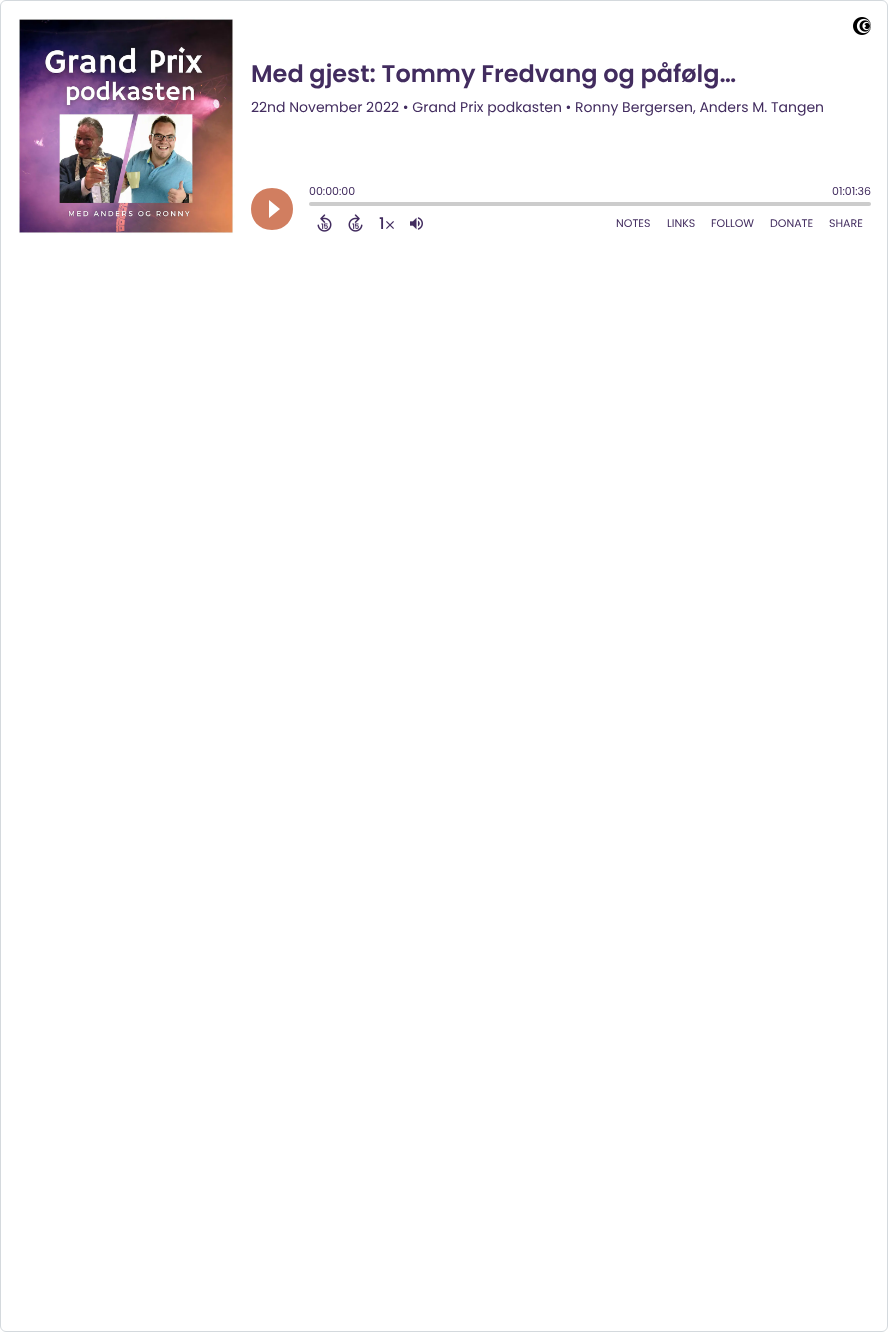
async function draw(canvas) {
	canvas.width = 888;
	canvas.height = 1332;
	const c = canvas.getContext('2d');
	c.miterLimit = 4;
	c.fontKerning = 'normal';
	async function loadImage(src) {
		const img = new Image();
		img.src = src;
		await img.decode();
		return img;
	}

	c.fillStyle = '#fff';
	c.fillRect(0, 0, 888, 1332);
	c.beginPath();
	c.roundRect(0.5, 0.5, 887, 1331, 5.5);
	c.strokeStyle = '#d4d9dd';
	c.stroke();
	c.drawImage(await loadImage('img1.png'), 19, 17, 216, 218);
	c.drawImage(await loadImage('img2.png'), 853, 17, 18, 18);
	c.font = '600 24px Poppins';
	c.fillStyle = '#422c5f';
	c.fillText('Med gjest: Tommy Fredvang og påfølg…', 251, 82);
	c.font = '14px Poppins';
	c.fillText('22nd November 2022 • Grand Prix podkasten • Ronny Bergersen, Anders M. Tangen', 251, 112);
	c.fillStyle = '#d17e60';
	c.beginPath();
	c.moveTo(272, 230);
	c.bezierCurveTo(300, 230, 300, 188, 272, 188);
	c.bezierCurveTo(244, 188, 244, 230, 272, 230);
	c.closePath();
	c.moveTo(269, 218);
	c.lineTo(280, 209);
	c.lineTo(269, 200);
	c.closePath();
	c.fill('evenodd');
	c.font = '11px Poppins';
	c.fillStyle = '#422c5f';
	c.fillText('00:00:00', 309, 195);
	c.fillText('01:01:36', 832, 195);
	c.fillStyle = '#ccc';
	c.beginPath();
	c.roundRect(309, 202, 562, 4, 2);
	c.fill();
	c.drawImage(await loadImage('img3.png'), 317, 214, 15, 18);
	c.drawImage(await loadImage('img4.png'), 348, 214, 15, 18);
	c.font = '500 16px Poppins';
	c.fillStyle = '#422c5f';
	c.fillText('1', 379, 229);
	c.drawImage(await loadImage('img5.png'), 386, 221, 8, 8);
	c.drawImage(await loadImage('img6.png'), 410, 217, 13, 13);
	c.font = '11px Poppins';
	for (const [text, x, y] of [
		['NOTES', 616, 227],
		['LINKS', 667, 227],
		['FOLLOW', 711, 227],
		['DONATE', 770, 227],
		['SHARE', 829, 227],
	]) {
		c.fillText(text, x, y);
	}
}

draw(document.querySelector('canvas'));
